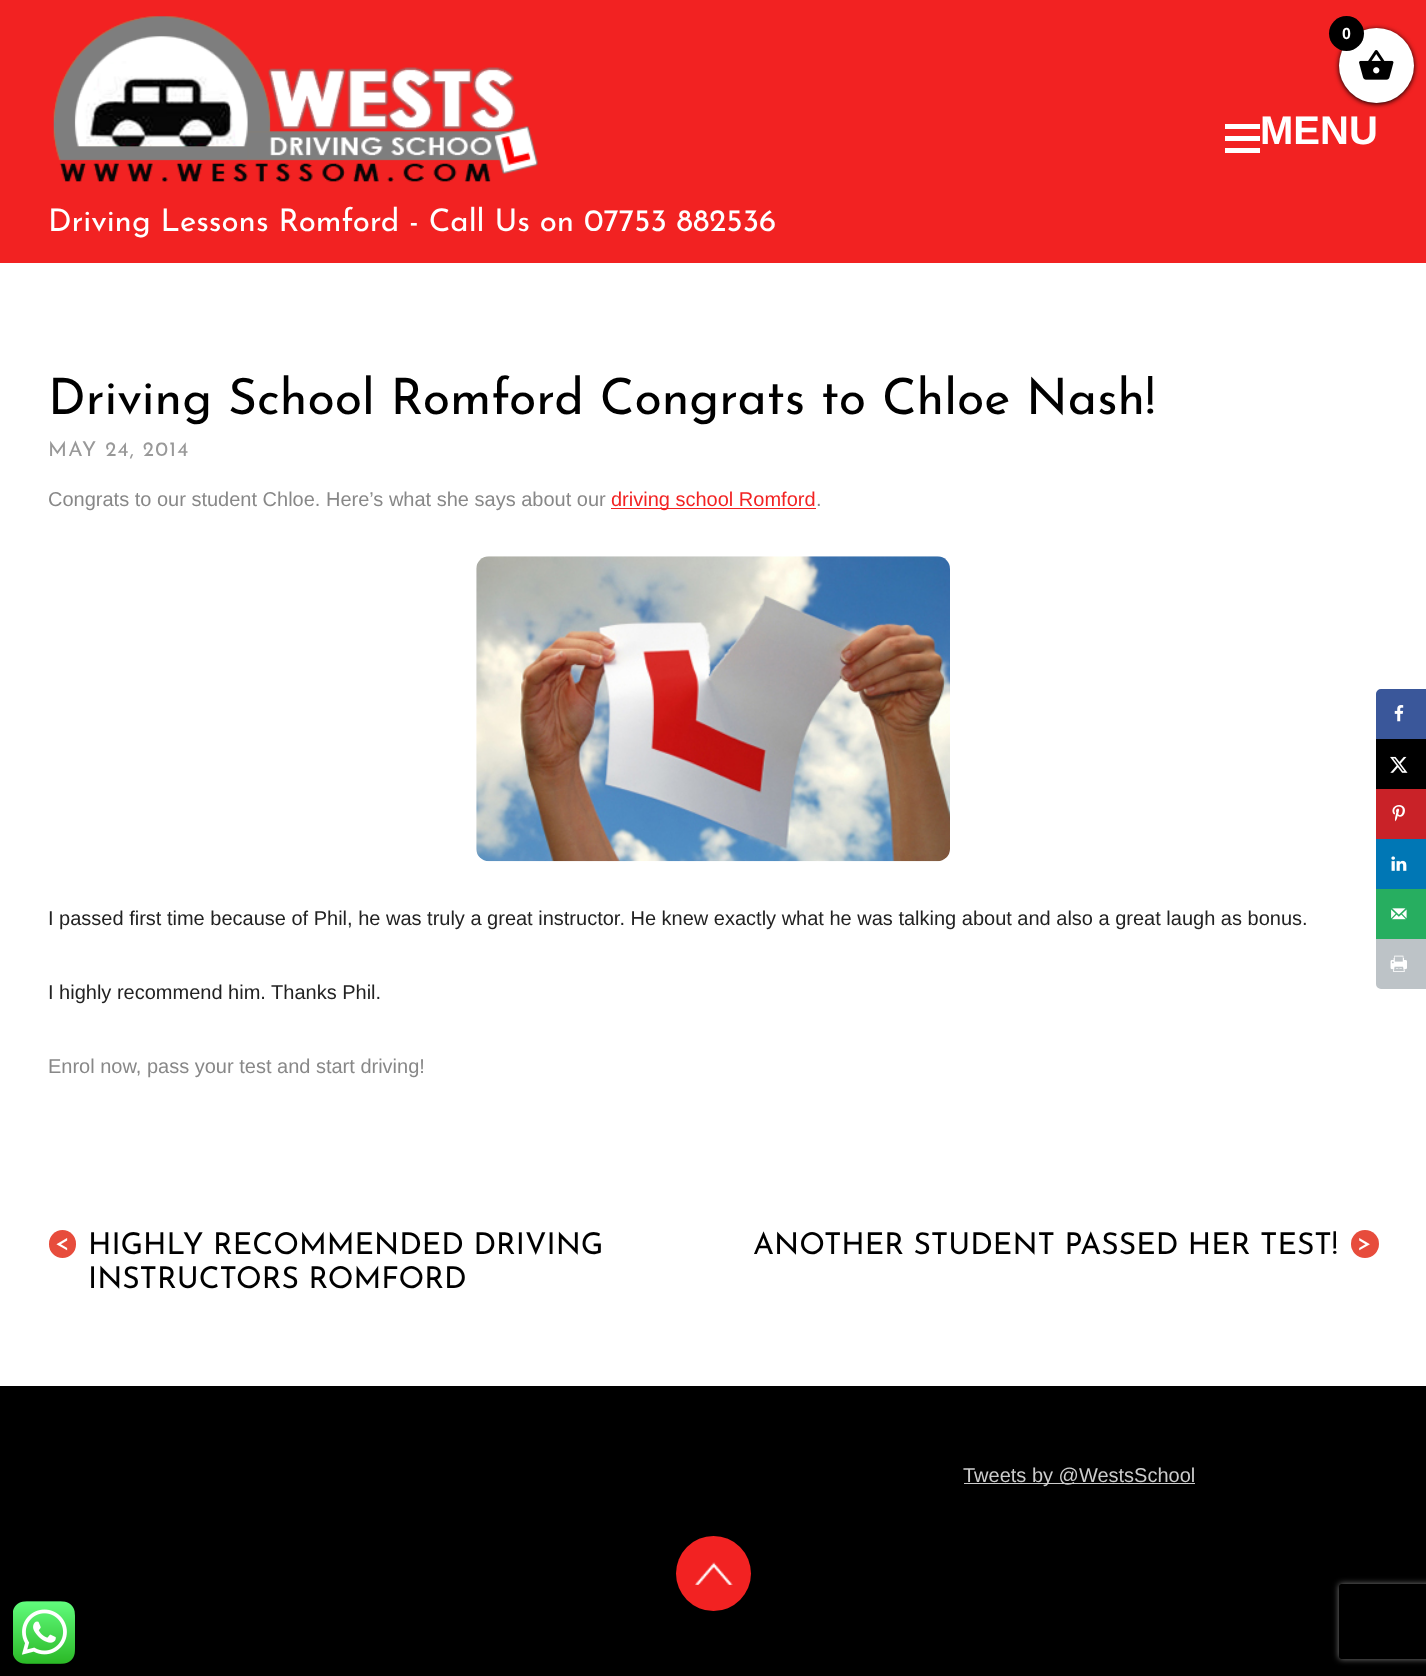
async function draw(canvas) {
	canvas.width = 1426;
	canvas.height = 1676;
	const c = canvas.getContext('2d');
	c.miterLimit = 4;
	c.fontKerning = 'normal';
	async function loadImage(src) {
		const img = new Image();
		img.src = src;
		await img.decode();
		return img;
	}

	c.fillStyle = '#fff';
	c.fillRect(0, 0, 1426, 1676);
	c.fillStyle = '#f22222';
	c.fillRect(0, 0, 1426, 263);
	c.fillStyle = '#000';
	c.filter = 'blur(2.5px)';
	c.beginPath();
	c.roundRect(1339, 29, 75, 75, 37.5);
	c.fill();
	c.filter = 'none';
	c.fillStyle = '#fff';
	c.beginPath();
	c.arc(1376.5, 65.5, 37.5, 0, 2 * Math.PI);
	c.fill();
	c.drawImage(await loadImage('img1.png'), 1359, 50, 35, 30);
	c.fillStyle = '#000';
	c.beginPath();
	c.arc(1346.5, 33.5, 17.5, 0, 2 * Math.PI);
	c.fill();
	c.font = 'bold 16px Liberation Sans';
	c.fillStyle = '#fff';
	c.fillText('0', 1342, 39);
	c.fillStyle = '#3a579a';
	c.beginPath();
	c.roundRect(1377.5, 690.5, 47, 47, [3.5, 0, 0, 0]);
	c.fill();
	c.strokeStyle = '#3a579a';
	c.lineWidth = 3;
	c.stroke();
	c.drawImage(await loadImage('img2.png'), 1394, 705, 10, 17);
	c.fillStyle = '#000';
	c.fillRect(1376, 739, 50, 50);
	c.drawImage(await loadImage('img3.png'), 1390, 756, 18, 17);
	c.fillStyle = '#c92228';
	c.fillRect(1376, 789, 50, 50);
	c.drawImage(await loadImage('img4.png'), 1392, 805, 13, 17);
	c.fillStyle = '#0077b5';
	c.fillRect(1376, 839, 50, 50);
	c.drawImage(await loadImage('img5.png'), 1391, 856, 16, 15);
	c.fillStyle = '#27ae60';
	c.fillRect(1376, 889, 50, 50);
	c.drawImage(await loadImage('img6.png'), 1391, 908, 16, 12);
	c.fillStyle = '#bdc3c7';
	c.beginPath();
	c.roundRect(1377.5, 940.5, 47, 47, [0, 0, 0, 3.5]);
	c.fill();
	c.strokeStyle = '#bdc3c7';
	c.stroke();
	c.drawImage(await loadImage('img7.png'), 1390, 955, 17, 17);
	c.fillStyle = '#000';
	c.fillRect(0, 1386, 1426, 290);
	c.drawImage(await loadImage('img8.png'), 13, 1601, 62, 63);
	for (const [x, y, w, h, color] of [
		[1225, 124, 35, 5, '#fff'],
		[1225, 148, 35, 5, '#fff'],
		[1225, 136, 35, 5, '#fff'],
	]) {
		c.fillStyle = color;
		c.fillRect(x, y, w, h);
	}
	c.font = 'bold 40px Liberation Sans';
	c.fillText('MENU', 1260, 144);
	c.drawImage(await loadImage('img9.png'), 53, 16, 485, 166);
	c.font = '100 31.25px Josefin Sans';
	c.fillText('Driving Lessons Romford - Call Us on 07753 882536', 48, 231);
	c.font = '100 50px Josefin Sans';
	c.fillStyle = '#000';
	c.fillText('Driving School Romford Congrats to Chloe Nash!', 48, 414);
	c.letterSpacing = '1.25px';
	c.font = '100 20.5px Josefin Sans';
	c.fillStyle = '#999';
	c.fillText('MAY 24, 2014', 48, 456);
	c.letterSpacing = '0px';
	c.font = '20px Liberation Sans';
	c.fillStyle = '#888';
	c.fillText('Congrats to our student Chloe. Here’s what she says about our', 48, 506);
	c.fillStyle = '#f22222';
	c.fillRect(611, 508, 205, 1);
	c.fillText('driving school Romford', 611, 506);
	c.fillStyle = '#888';
	c.fillText('.', 816, 506);
	c.drawImage(await loadImage('img10.png'), 476, 556, 474, 306);
	c.fillStyle = '#222';
	c.fillText('I passed first time because of Phil, he was truly a great instructor. He knew exactly what he was talking about and also a great laugh as bonus.', 48, 925);
	c.fillText('I highly recommend him. Thanks Phil.', 48, 999);
	c.fillStyle = '#888';
	c.fillText('Enrol now, pass your test and start driving!', 48, 1073);
	c.fillStyle = '#e74c3c';
	c.beginPath();
	c.roundRect(49, 1230, 27, 28, 13.5);
	c.fill();
	c.font = '100 24px Josefin Sans';
	c.fillStyle = '#fff';
	c.fillText('<', 55, 1250);
	c.font = '100 30px Josefin Sans';
	c.fillStyle = '#000';
	for (const [text, x, y] of [
		['HIGHLY RECOMMENDED DRIVING', 88, 1254],
		['INSTRUCTORS ROMFORD', 88, 1288],
		['ANOTHER STUDENT PASSED HER TEST!', 753, 1254],
	]) {
		c.fillText(text, x, y);
	}
	c.fillStyle = '#e74c3c';
	c.beginPath();
	c.arc(1365, 1244, 14, 0, 2 * Math.PI);
	c.fill();
	c.font = '100 24px Josefin Sans';
	c.fillStyle = '#fff';
	c.fillText('>', 1357, 1250);
	c.fillStyle = '#ccc';
	c.fillRect(964, 1483, 231, 1);
	c.font = '20px Liberation Sans';
	c.fillText('Tweets by @WestsSchool', 963, 1482);
	c.fillStyle = '#f22222';
	c.beginPath();
	c.arc(713.5, 1573.5, 37.5, 0, 2 * Math.PI);
	c.fill();
	c.drawImage(await loadImage('img11.png'), 695, 1562, 38, 23);
	c.save();
	c.beginPath();
	c.moveTo(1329, 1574);
	c.lineTo(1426, 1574);
	c.lineTo(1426, 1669);
	c.lineTo(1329, 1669);
	c.closePath();
	c.moveTo(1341.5, 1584);
	c.lineTo(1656.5, 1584);
	c.bezierCurveTo(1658, 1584, 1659, 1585, 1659, 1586.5);
	c.lineTo(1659, 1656.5);
	c.bezierCurveTo(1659, 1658, 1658, 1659, 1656.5, 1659);
	c.lineTo(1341.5, 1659);
	c.bezierCurveTo(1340, 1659, 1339, 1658, 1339, 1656.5);
	c.lineTo(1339, 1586.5);
	c.bezierCurveTo(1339, 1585, 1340, 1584, 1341.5, 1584);
	c.closePath();
	c.clip('evenodd');
	c.fillStyle = '#808080';
	c.filter = 'blur(3px)';
	c.beginPath();
	c.roundRect(1339, 1584, 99, 75, 2.5);
	c.fill();
	c.filter = 'none';
	c.restore();
}

draw(document.querySelector('canvas'));
